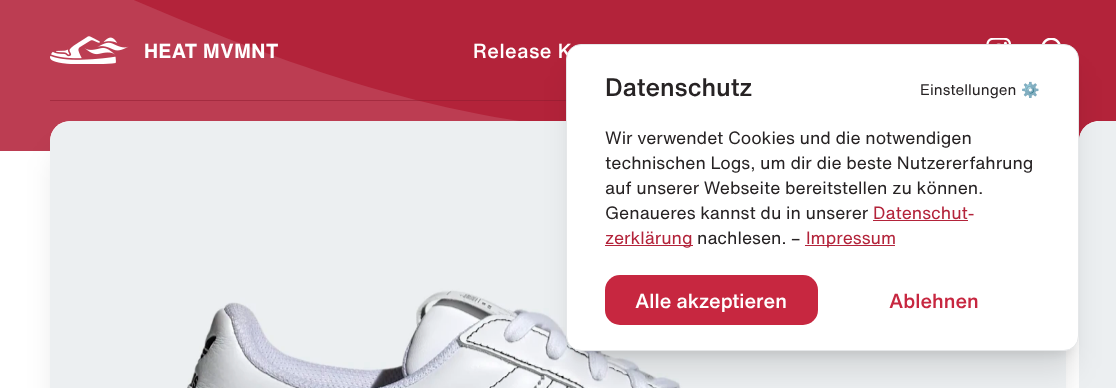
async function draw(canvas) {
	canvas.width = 1116;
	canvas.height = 388;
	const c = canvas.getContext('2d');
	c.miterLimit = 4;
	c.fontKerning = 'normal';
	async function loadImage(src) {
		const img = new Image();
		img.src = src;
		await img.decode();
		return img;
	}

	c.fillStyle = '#fff';
	c.fillRect(0, 0, 1116, 388);
	c.fillStyle = '#b3233a';
	c.fillRect(134, 0, 982, 140);
	c.save();
	c.beginPath();
	c.rect(0, 0, 881, 151);
	c.clip();
	c.fillStyle = '#bc3d52';
	c.beginPath();
	c.moveTo(-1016, 112);
	c.bezierCurveTo(-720, -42, -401, -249, -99, -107);
	c.bezierCurveTo(203, 35, 586, 227, 881, 73);
	c.bezierCurveTo(586, 227, 259, 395, -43, 253);
	c.bezierCurveTo(-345, 111, -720, -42, -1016, 112);
	c.closePath();
	c.fill();
	c.restore();
	c.drawImage(await loadImage('img1.png'), 986, 38, 25, 6);
	c.drawImage(await loadImage('img2.png'), 1042, 38, 19, 6);
	c.drawImage(await loadImage('img3.png'), 50, 36, 79, 28);
	c.letterSpacing = '0.5px';
	c.font = 'bold 20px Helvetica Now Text';
	c.fillStyle = '#fff';
	c.fillText('HEAT MVMNT', 144, 58);
	c.font = '500 20px Helvetica Now Text';
	c.fillText('Release K', 473, 58);
	c.fillStyle = '#8c1c2e80';
	c.fillRect(50, 100, 516, 1);
	c.fillStyle = '#0000001a';
	c.filter = 'blur(15.5px)';
	c.beginPath();
	c.roundRect(56, 153, 1004, 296, 14);
	c.fill();
	c.filter = 'none';
	c.fillStyle = '#fff';
	c.beginPath();
	c.roundRect(50, 121, 1016, 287, 20);
	c.fill();
	c.drawImage(await loadImage('img4.png'), 50, 121, 1016, 267);
	c.beginPath();
	c.moveTo(1099, 121);
	c.lineTo(1116, 121);
	c.lineTo(1116, 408);
	c.lineTo(1099, 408);
	c.bezierCurveTo(1088, 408, 1079, 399, 1079, 388);
	c.lineTo(1079, 141);
	c.bezierCurveTo(1079, 130, 1088, 121, 1099, 121);
	c.closePath();
	c.fill();
	c.drawImage(await loadImage('img5.png'), 1079, 121, 37, 267);
	c.fillStyle = '#0000001a';
	c.filter = 'blur(6px)';
	c.beginPath();
	c.roundRect(574, 61, 497, 293, 8);
	c.fill();
	c.filter = 'none';
	c.filter = 'blur(15.5px)';
	c.beginPath();
	c.roundRect(573, 75, 500, 295, 9);
	c.fill();
	c.filter = 'none';
	c.fillStyle = '#fff';
	c.beginPath();
	c.roundRect(566.5, 44.5, 512, 306, 14.5);
	c.fill();
	c.strokeStyle = '#e5e7e9';
	c.stroke();
	c.letterSpacing = '0px';
	c.font = '500 25px Helvetica Now Text';
	c.fillStyle = '#272324';
	c.fillText('Datenschutz', 605, 96);
	c.font = '15px Helvetica Now Text';
	c.fillText('Einstellungen', 920, 95);
	c.font = '15px Noto Color Emoji';
	c.fillText('⚙️', 1021, 95);
	c.font = '17.5px Helvetica Now Text';
	for (const [text, x, y] of [
		['Wir verwendet Cookies und die notwendigen', 605, 144],
		['technischen Logs, um dir die beste Nutzererfahrung', 605, 169],
		['auf unserer Webseite bereitstellen zu können.', 605, 194],
		['Genaueres kannst du in unserer', 605, 219],
	]) {
		c.fillText(text, x, y);
	}
	c.fillStyle = '#b3233a';
	c.fillText('Datenschut-', 873, 219);
	c.fillRect(873, 220, 95, 1);
	c.fillRect(605, 245, 88, 1);
	c.fillText('zerklärung', 605, 244);
	c.fillStyle = '#272324';
	c.fillText('nachlesen. –', 697, 244);
	c.fillStyle = '#b3233a';
	c.fillRect(805, 245, 90, 1);
	c.fillText('Impressum', 806, 244);
	c.fillStyle = '#c72740';
	c.beginPath();
	c.roundRect(605, 275, 213, 50, 15);
	c.fill();
	c.font = '500 20px Helvetica Now Text';
	c.fillStyle = '#fff';
	c.fillText('Alle akzeptieren', 635, 308);
	c.fillStyle = '#c72740';
	c.fillText('Ablehnen', 889, 308);
}

draw(document.querySelector('canvas'));
